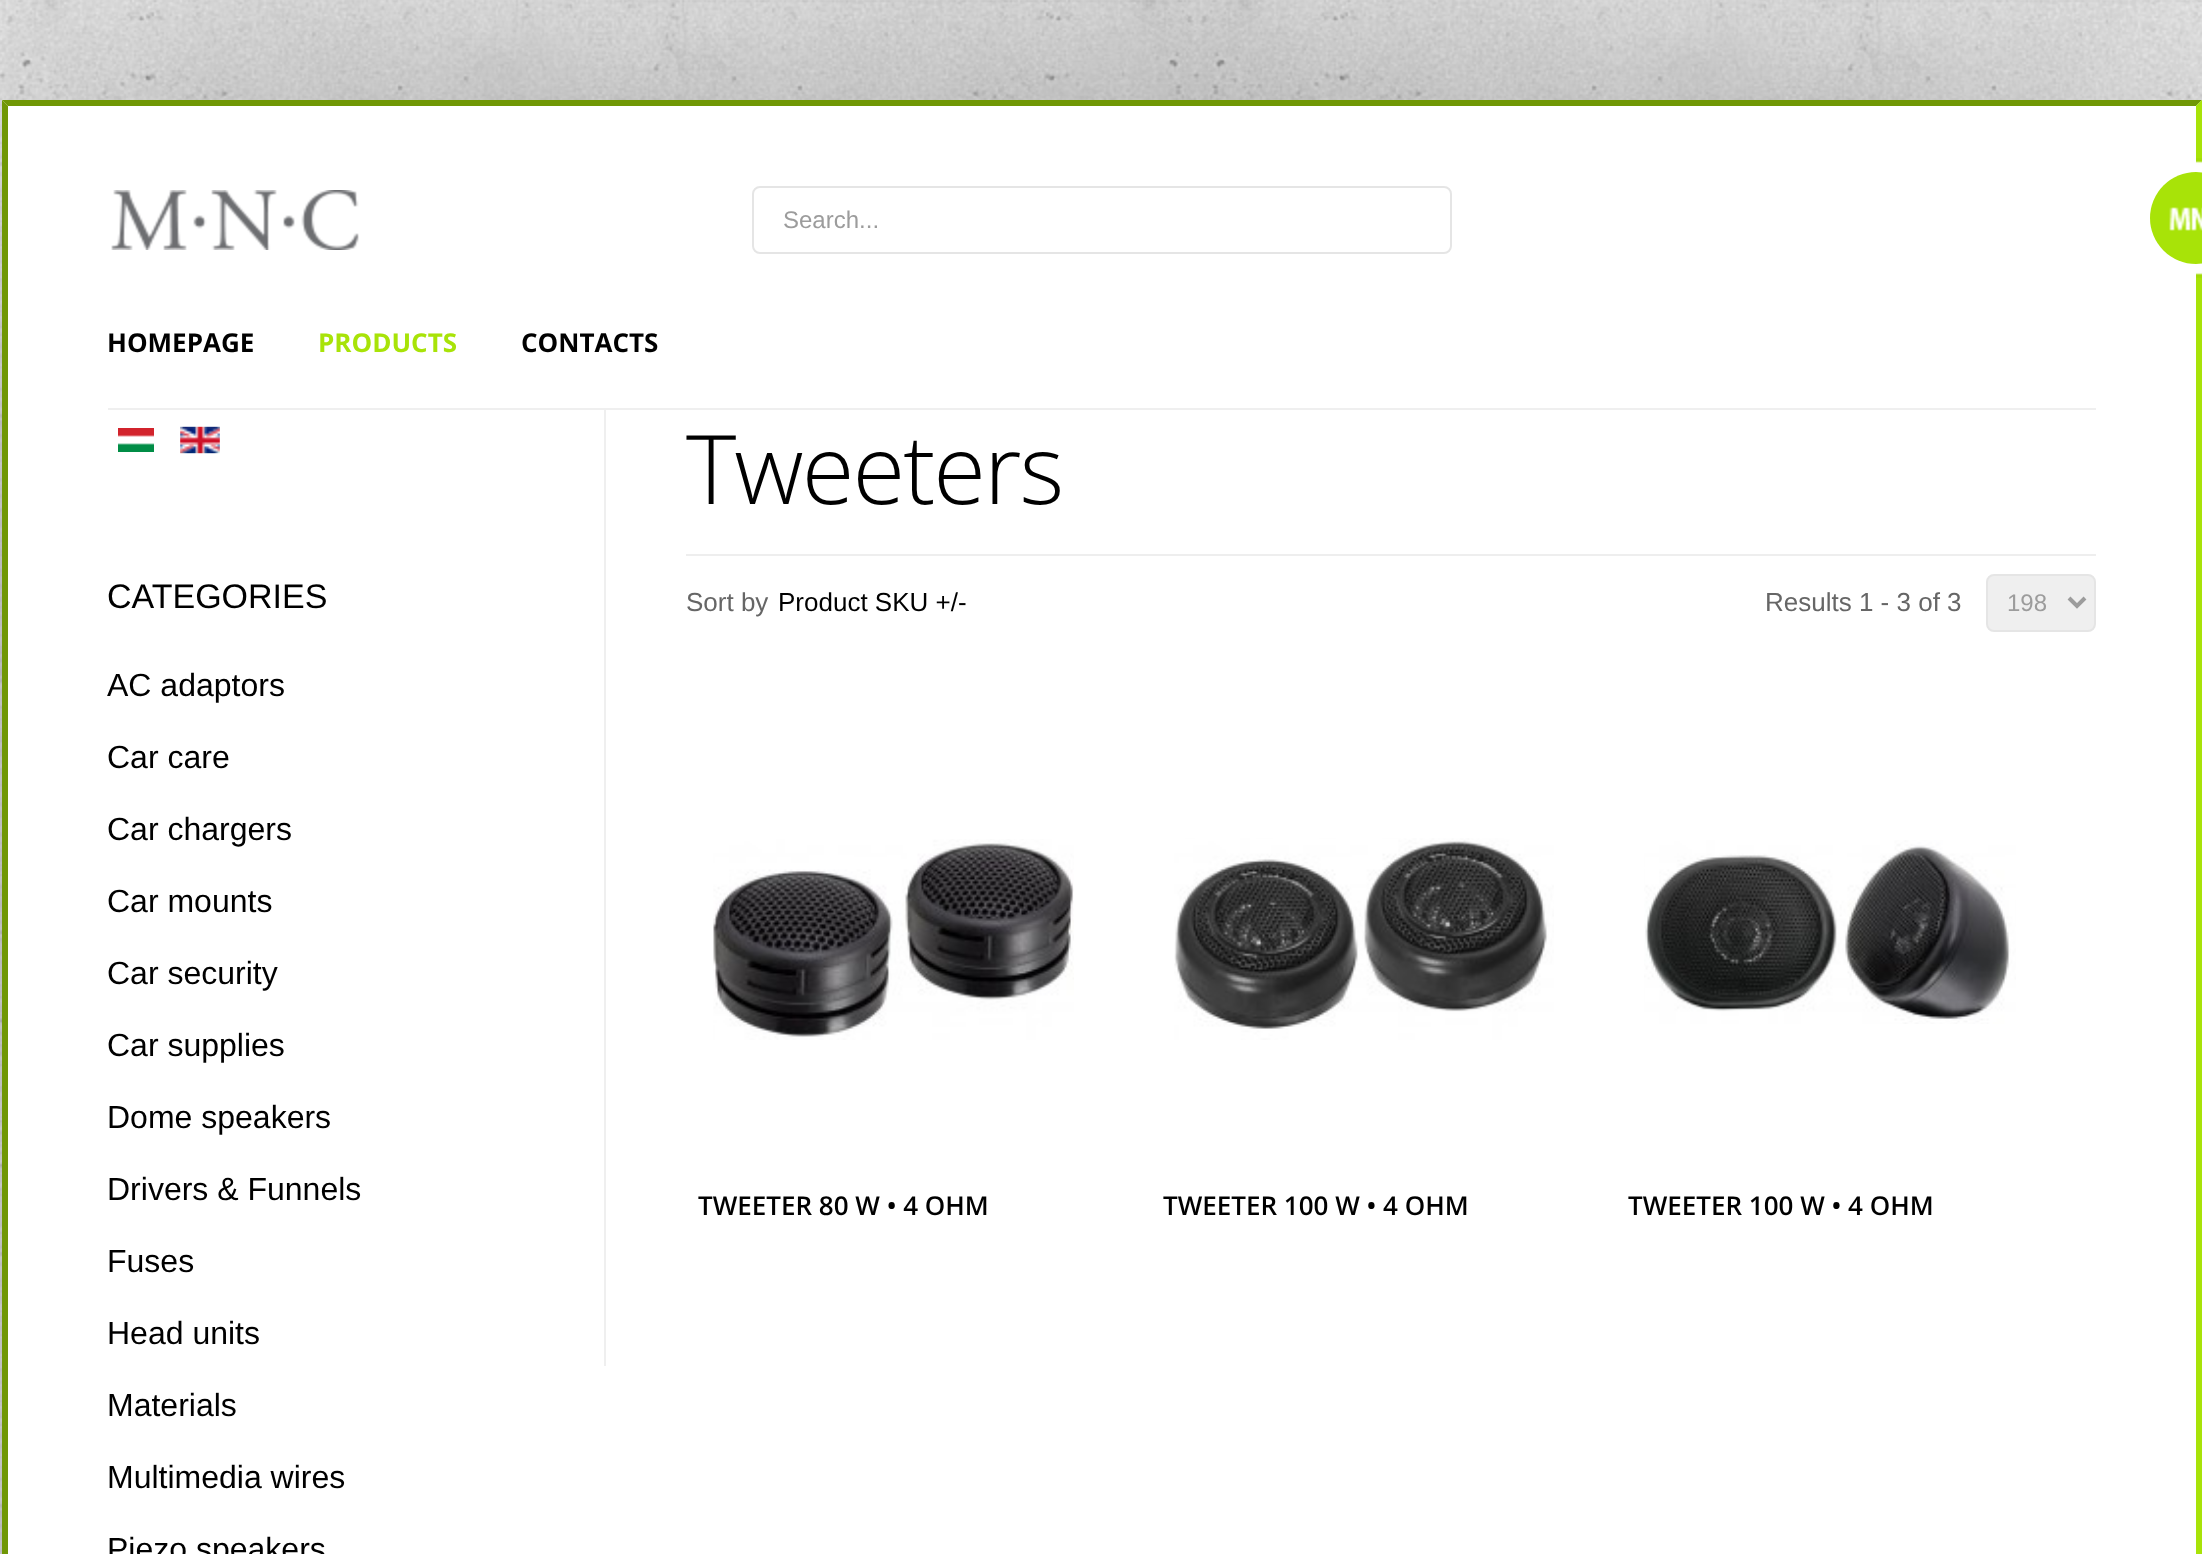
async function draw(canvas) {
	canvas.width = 2202;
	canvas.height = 1554;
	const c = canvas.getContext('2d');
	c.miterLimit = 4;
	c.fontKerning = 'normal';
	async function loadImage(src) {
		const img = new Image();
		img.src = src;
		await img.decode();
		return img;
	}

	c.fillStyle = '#fff';
	c.fillRect(0, 0, 2202, 1554);
	c.drawImage(await loadImage('img1.png'), 0, 0, 2202, 1554);
	c.fillStyle = '#00000059';
	c.filter = 'blur(200px)';
	c.beginPath();
	c.rect(2, 100, 2200, 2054);
	c.fill();
	c.filter = 'none';
	c.fillStyle = '#fff';
	c.fillRect(2, 100, 2200, 1454);
	c.fillStyle = '#709705';
	c.beginPath();
	c.moveTo(2, 100);
	c.lineTo(2202, 100);
	c.lineTo(2196, 106);
	c.lineTo(8, 106);
	c.closePath();
	c.fill();
	c.fillStyle = '#a8e308';
	c.beginPath();
	c.moveTo(2202, 100);
	c.lineTo(2202, 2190);
	c.lineTo(2196, 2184);
	c.lineTo(2196, 106);
	c.closePath();
	c.fill();
	c.fillStyle = '#709705';
	c.beginPath();
	c.moveTo(2, 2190);
	c.lineTo(2, 100);
	c.lineTo(8, 106);
	c.lineTo(8, 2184);
	c.closePath();
	c.fill();
	c.drawImage(await loadImage('img2.png'), 111, 190, 248, 60);
	c.beginPath();
	c.roundRect(753, 187, 698, 66, 7);
	c.strokeStyle = '#e5e5e5';
	c.lineWidth = 2;
	c.stroke();
	c.font = '24px Liberation Sans';
	c.fillStyle = '#9c9c9c';
	c.fillText('Search...', 783, 228);
	c.font = 'bold 26px Open Sans';
	c.fillStyle = '#000';
	c.fillText('HOMEPAGE', 107, 352);
	c.fillStyle = '#a8e308';
	c.fillText('PRODUCTS', 318, 352);
	c.fillStyle = '#000';
	c.fillText('CONTACTS', 521, 352);
	c.drawImage(await loadImage('img3.png'), 2196, 158, 6, 120);
	c.fillStyle = '#a8e308';
	c.beginPath();
	c.arc(2196, 218, 46, 0, 2 * Math.PI);
	c.fill();
	c.drawImage(await loadImage('img4.png'), 2169, 207, 33, 24);
	c.fillStyle = '#efefef';
	c.fillRect(108, 408, 1988, 2);
	c.drawImage(await loadImage('img5.png'), 118, 428, 36, 24);
	c.drawImage(await loadImage('img6.png'), 180, 426, 40, 28);
	c.font = '34px Liberation Sans';
	c.fillStyle = '#000';
	c.fillText('CATEGORIES', 107, 608);
	c.font = '32px Liberation Sans';
	for (const [text, x, y] of [
		['AC adaptors', 107, 696],
		['Car care', 107, 768],
		['Car chargers', 107, 840],
		['Car mounts', 107, 912],
		['Car security', 107, 984],
		['Car supplies', 107, 1056],
		['Dome speakers', 107, 1128],
		['Drivers & Funnels', 107, 1200],
		['Fuses', 107, 1272],
		['Head units', 107, 1344],
		['Materials', 107, 1416],
		['Multimedia wires', 107, 1488],
		['Piezo speakers', 107, 1560],
	]) {
		c.fillText(text, x, y);
	}
	c.fillStyle = '#efefef';
	c.fillRect(604, 410, 2, 956);
	c.letterSpacing = '-2px';
	c.font = '300 96px Open Sans';
	c.fillStyle = '#000';
	c.fillText('Tweeters', 686, 504);
	c.fillStyle = '#eee';
	c.fillRect(686, 554, 1410, 2);
	c.letterSpacing = '0px';
	c.font = '26px Liberation Sans';
	c.fillStyle = '#666';
	c.fillText('Sort by', 686, 611);
	c.fillStyle = '#000';
	c.fillText('Product SKU +/-', 778, 611);
	c.fillStyle = '#666';
	c.fillText('Results 1 - 3 of 3', 1765, 611);
	c.fillStyle = '#efefef';
	c.beginPath();
	c.roundRect(1987, 575, 108, 56, 7);
	c.fill();
	c.stroke();
	c.beginPath();
	c.moveTo(2069, 598);
	c.lineTo(2077, 606);
	c.lineTo(2085, 598);
	c.strokeStyle = '#9c9c9c';
	c.lineWidth = 4;
	c.stroke();
	c.font = '24px Liberation Sans';
	c.fillStyle = '#9c9c9c';
	c.fillText('198', 2007, 611);
	c.drawImage(await loadImage('img7.png'), 713, 839, 361, 201);
	c.font = '600 26px Open Sans';
	c.fillStyle = '#000';
	c.fillText('TWEETER 80 W • 4 OHM', 698, 1215);
	c.drawImage(await loadImage('img8.png'), 1174, 838, 380, 202);
	c.fillText('TWEETER 100 W • 4 OHM', 1163, 1215);
	c.drawImage(await loadImage('img9.png'), 1644, 840, 372, 184);
	c.fillText('TWEETER 100 W • 4 OHM', 1628, 1215);
}

draw(document.querySelector('canvas'));
